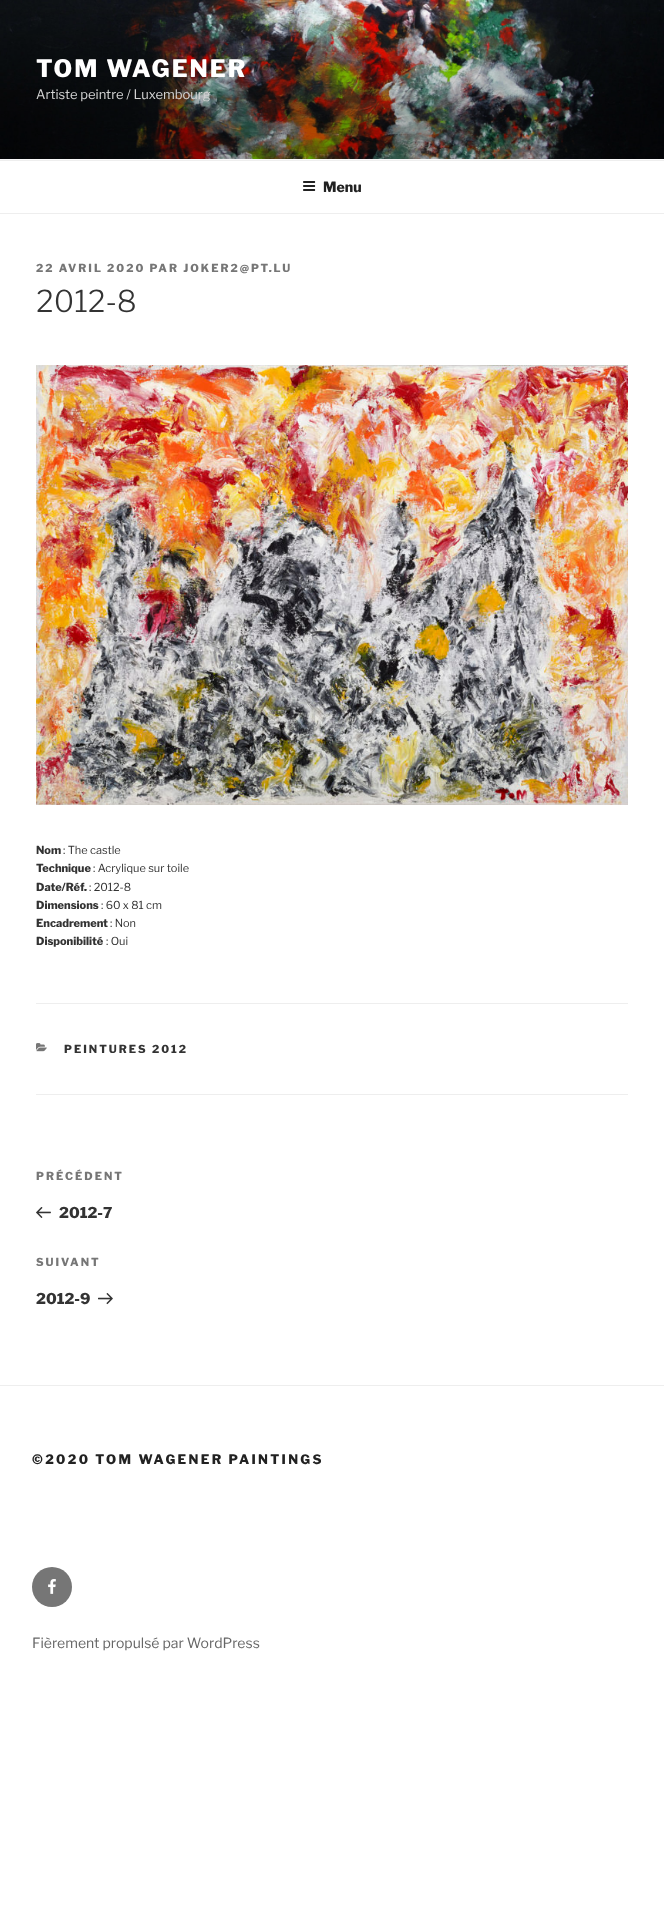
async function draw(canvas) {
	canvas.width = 664;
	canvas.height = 1909;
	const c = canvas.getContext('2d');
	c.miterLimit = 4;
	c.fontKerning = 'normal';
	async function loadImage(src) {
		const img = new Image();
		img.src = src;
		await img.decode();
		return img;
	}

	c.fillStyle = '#fff';
	c.fillRect(0, 0, 664, 1909);
	c.fillStyle = '#fafafa';
	c.fillRect(0, 159, 664, 1);
	c.drawImage(await loadImage('img1.png'), 0, 0, 664, 159);
	c.letterSpacing = '2px';
	c.font = '800 24px Libre Franklin';
	c.fillStyle = '#fff';
	c.fillText('TOM WAGENER', 36, 77);
	c.letterSpacing = '0px';
	c.font = '13px Libre Franklin';
	c.fillStyle = '#d3d3d3';
	c.fillText('Artiste peintre / Luxembourg', 36, 99);
	c.fillStyle = '#eee';
	c.fillRect(0, 160, 664, 1);
	c.fillRect(0, 213, 664, 1);
	c.drawImage(await loadImage('img2.png'), 303, 181, 13, 10);
	c.font = '800 14px Libre Franklin';
	c.fillStyle = '#222';
	c.fillText('Menu', 323, 192);
	c.letterSpacing = '2px';
	c.font = '800 11px Libre Franklin';
	c.fillStyle = '#767676';
	c.fillText('22 AVRIL 2020 PAR JOKER2@PT.LU', 36, 272);
	c.letterSpacing = '0px';
	c.font = '300 30px Libre Franklin';
	c.fillStyle = '#333';
	c.fillText('2012-8', 36, 312);
	c.drawImage(await loadImage('img3.png'), 36, 365, 592, 440);
	c.font = '800 11px Libre Franklin';
	c.fillText('Nom', 36, 854);
	c.font = '11px Libre Franklin';
	c.fillText(': The castle', 63, 854);
	c.font = '800 11px Libre Franklin';
	c.fillText('Technique', 36, 872);
	c.font = '11px Libre Franklin';
	c.fillText(': Acrylique sur toile', 93, 872);
	c.font = '800 11px Libre Franklin';
	c.fillText('Date/Réf.', 36, 891);
	c.font = '11px Libre Franklin';
	c.fillText(': 2012-8', 89, 891);
	c.font = '800 11px Libre Franklin';
	c.fillText('Dimensions', 36, 909);
	c.font = '11px Libre Franklin';
	c.fillText(': 60 x 81 cm', 101, 909);
	c.font = '800 11px Libre Franklin';
	c.fillText('Encadrement', 36, 927);
	c.font = '11px Libre Franklin';
	c.fillText(': Non', 110, 927);
	c.font = '800 11px Libre Franklin';
	c.fillText('Disponibilité', 36, 945);
	c.font = '11px Libre Franklin';
	c.fillText(': Oui', 106, 945);
	c.fillStyle = '#eee';
	c.fillRect(36, 1003, 592, 1);
	c.fillRect(36, 1094, 592, 1);
	c.drawImage(await loadImage('img4.png'), 36, 1043, 11, 9);
	c.letterSpacing = '2px';
	c.font = '800 11px Libre Franklin';
	c.fillStyle = '#333';
	c.fillText('PEINTURES 2012', 64, 1053);
	c.fillStyle = '#767676';
	c.fillText('PRÉCÉDENT', 36, 1180);
	c.drawImage(await loadImage('img5.png'), 36, 1207, 15, 11);
	c.letterSpacing = '0px';
	c.font = '800 15px Libre Franklin';
	c.fillStyle = '#333';
	c.fillText('2012-7', 59, 1218);
	c.letterSpacing = '2px';
	c.font = '800 11px Libre Franklin';
	c.fillStyle = '#767676';
	c.fillText('SUIVANT', 36, 1266);
	c.letterSpacing = '0px';
	c.font = '800 15px Libre Franklin';
	c.fillStyle = '#333';
	c.fillText('2012-9', 36, 1304);
	c.drawImage(await loadImage('img6.png'), 98, 1293, 15, 12);
	c.fillStyle = '#eee';
	c.fillRect(0, 1385, 664, 1);
	c.letterSpacing = '2.35px';
	c.font = '800 13px Libre Franklin';
	c.fillStyle = '#222';
	c.fillText('©2020 TOM WAGENER PAINTINGS', 32, 1464);
	c.fillStyle = '#767676';
	c.beginPath();
	c.arc(52, 1587, 20, 0, 2 * Math.PI);
	c.fill();
	c.drawImage(await loadImage('img7.png'), 48, 1579, 8, 15);
	c.letterSpacing = '0px';
	c.font = '14px Libre Franklin';
	c.fillStyle = '#666';
	c.fillText('Fièrement propulsé par WordPress', 32, 1648);
}

draw(document.querySelector('canvas'));
